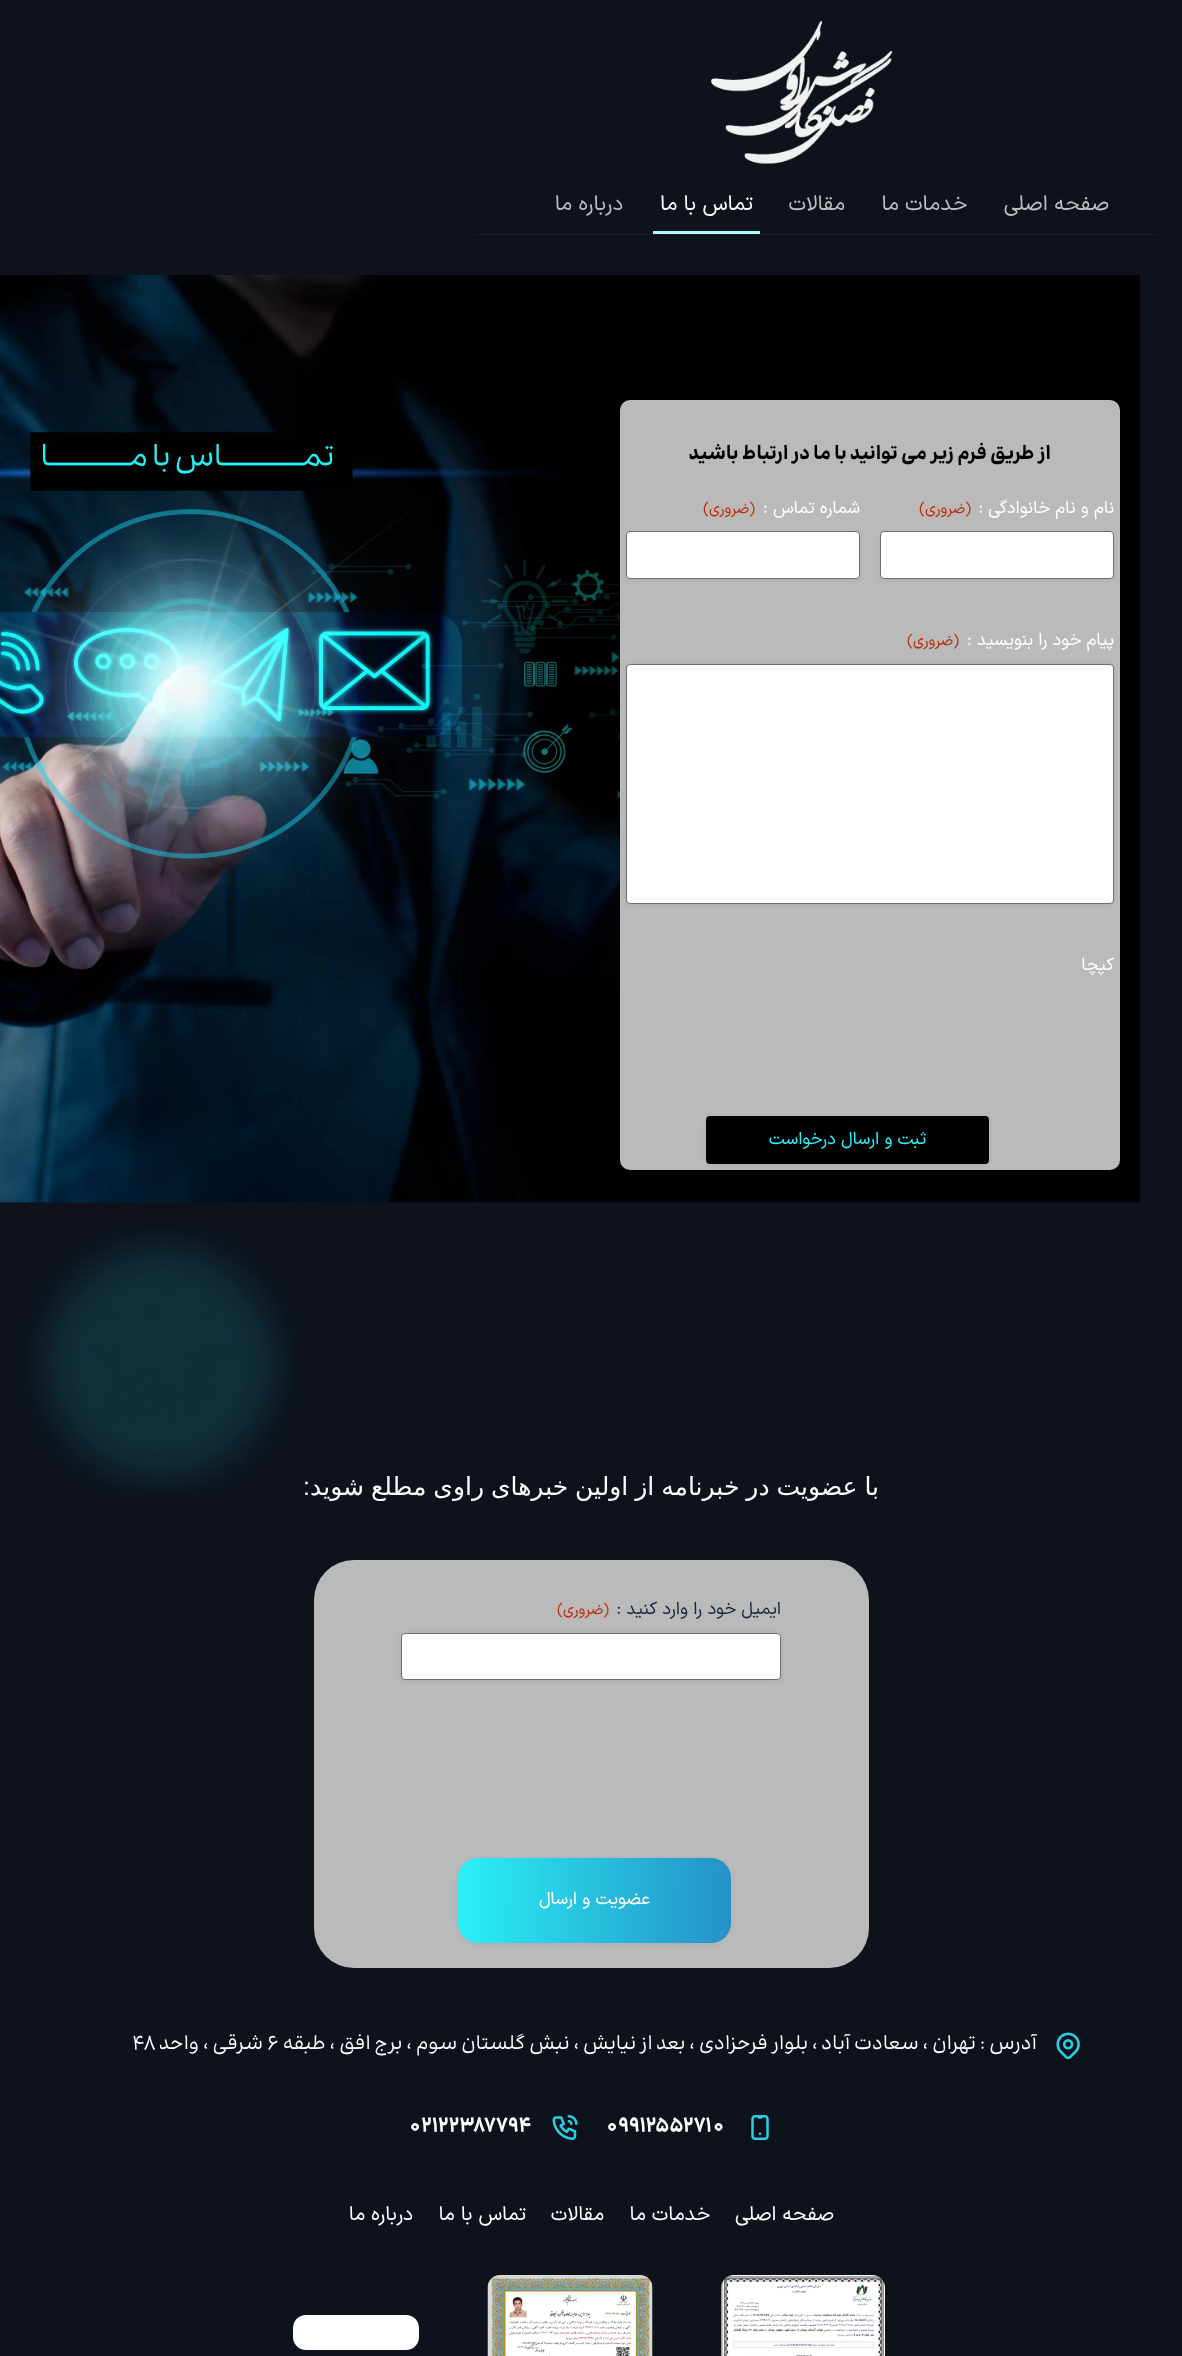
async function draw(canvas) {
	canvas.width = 1182;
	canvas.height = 2356;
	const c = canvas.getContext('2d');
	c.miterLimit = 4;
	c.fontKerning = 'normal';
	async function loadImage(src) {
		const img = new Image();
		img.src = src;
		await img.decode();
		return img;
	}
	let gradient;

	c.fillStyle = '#0d121b';
	c.fillRect(0, 0, 1182, 2356);
	c.drawImage(await loadImage('img1.png'), 711, 20, 182, 144);
	c.fillStyle = '#181c23';
	c.fillRect(474, 234, 684, 1);
	c.direction = 'rtl';
	c.font = '21.25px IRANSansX';
	c.fillStyle = '#bebebe';
	for (const [text, x, y] of [
		['صفحه اصلی', 1109, 210],
		['خدمات ما', 967, 210],
		['مقالات', 845, 210],
	]) {
		c.fillText(text, x, y);
	}
	c.fillStyle = '#fff';
	c.fillText('تماس با ما', 753, 210);
	c.fillStyle = '#a6fbfc';
	c.fillRect(653, 231, 107, 3);
	c.fillStyle = '#bebebe';
	c.fillText('درباره ما', 623, 210);
	c.drawImage(await loadImage('img2.png'), 0, 275, 1140, 928);
	c.fillStyle = '#bababa';
	c.beginPath();
	c.roundRect(620, 400, 500, 770, 10);
	c.fill();
	c.font = 'bold 20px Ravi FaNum';
	c.fillStyle = '#000';
	c.fillText('از طریق فرم زیر می توانید با ما در ارتباط باشید', 1051, 459);
	c.font = '17.5px IRANSansX';
	c.fillStyle = '#fff';
	c.fillText('نام و نام خانوادگی :', 1114, 513);
	c.font = '15px IRANSansX';
	c.fillStyle = '#c02b0a';
	c.fillText('(ضروری)', 971, 513);
	c.fillStyle = '#12196114';
	c.filter = 'blur(2.5px)';
	c.beginPath();
	c.roundRect(880, 533, 234, 47, 4);
	c.fill();
	c.filter = 'none';
	c.fillStyle = '#fff';
	c.beginPath();
	c.roundRect(880.5, 531.5, 233, 47, 3.5);
	c.fill();
	c.strokeStyle = '#686e77';
	c.stroke();
	c.font = '17.5px IRANSansX';
	c.fillText('شماره تماس :', 860, 513);
	c.font = '15px IRANSansX';
	c.fillStyle = '#c02b0a';
	c.fillText('(ضروری)', 755, 513);
	c.fillStyle = '#12196114';
	c.filter = 'blur(2.5px)';
	c.beginPath();
	c.roundRect(626, 533, 234, 47, 4);
	c.fill();
	c.filter = 'none';
	c.fillStyle = '#fff';
	c.beginPath();
	c.roundRect(626.5, 531.5, 233, 47, 3.5);
	c.fill();
	c.stroke();
	c.font = '17.5px IRANSansX';
	c.fillText('پیام خود را بنویسید :', 1114, 645);
	c.font = '15px IRANSansX';
	c.fillStyle = '#c02b0a';
	c.fillText('(ضروری)', 959, 645);
	c.fillStyle = '#12196114';
	c.filter = 'blur(2.5px)';
	c.beginPath();
	c.roundRect(626, 665, 488, 240, 4);
	c.fill();
	c.filter = 'none';
	c.fillStyle = '#fff';
	c.beginPath();
	c.roundRect(626.5, 664.5, 487, 239, 3.5);
	c.fill();
	c.stroke();
	c.font = '17.5px IRANSansX';
	c.fillText('کپچا', 1114, 970);
	c.fillStyle = '#12196114';
	c.filter = 'blur(2.5px)';
	c.beginPath();
	c.roundRect(706, 1118, 283, 47, 4);
	c.fill();
	c.filter = 'none';
	c.fillStyle = '#000';
	c.beginPath();
	c.roundRect(706, 1116, 283, 48, 4);
	c.fill();
	c.fillStyle = '#2af6ff';
	c.fillText('ثبت و ارسال درخواست', 926, 1144);
	c.drawImage(await loadImage('img3.png'), 26, 1228, 268, 269);
	c.wordSpacing = '-1px';
	c.font = '25px DejaVu Sans';
	c.fillStyle = '#fff';
	c.fillText('با عضویت در خبرنامه از اولین خبرهای راوی مطلع شوید', 879, 1495);
	c.wordSpacing = '0px';
	c.font = '25px Liberation Sans';
	c.fillText(':', 310, 1495);
	c.fillStyle = '#bababa';
	c.beginPath();
	c.roundRect(314, 1560, 555, 408, 40);
	c.fill();
	c.font = '17.5px IRANSansX';
	c.fillStyle = '#112337';
	c.fillText('ایمیل خود را وارد کنید :', 781, 1614);
	c.font = '15px IRANSansX';
	c.fillStyle = '#c02b0a';
	c.fillText('(ضروری)', 609, 1614);
	c.fillStyle = '#12196114';
	c.filter = 'blur(2.5px)';
	c.beginPath();
	c.roundRect(401, 1634, 380, 47, 4);
	c.fill();
	c.filter = 'none';
	c.fillStyle = '#fff';
	c.beginPath();
	c.roundRect(401.5, 1633.5, 379, 46, 3.5);
	c.fill();
	c.stroke();
	c.fillStyle = '#12196114';
	c.filter = 'blur(2.5px)';
	c.beginPath();
	c.roundRect(458, 1859, 273, 85, 20);
	c.fill();
	c.filter = 'none';
	gradient = c.createLinearGradient(732, 1903, 457, 1897);
	gradient.addColorStop(0.01, '#2691c8');
	gradient.addColorStop(1, '#2beff6');
	c.fillStyle = gradient;
	c.beginPath();
	c.roundRect(458, 1858, 273, 85, 20);
	c.fill();
	c.font = '17.5px IRANSansX';
	c.fillStyle = '#fff';
	c.fillText('عضویت و ارسال', 650, 1904);
	c.drawImage(await loadImage('img4.png'), 1056, 2032, 24, 28);
	c.font = '20px Ravi FaNum';
	c.fillText('آدرس : تهران ، سعادت آباد ، بلوار فرحزادی ، بعد از نیایش ، نبش گلستان سوم ، برج افق ، طبقه', 1037, 2049);
	c.direction = 'ltr';
	c.fillText('6', 267, 2049);
	c.direction = 'rtl';
	c.fillText('شرقی ، واحد', 263, 2049);
	c.direction = 'ltr';
	c.fillText('48', 132, 2049);
	c.drawImage(await loadImage('img5.png'), 751, 2115, 18, 25);
	c.font = 'bold 20px Ravi FaNum';
	c.fillText('09912552710', 605, 2131);
	c.drawImage(await loadImage('img6.png'), 552, 2115, 26, 25);
	c.fillText('02122387794', 408, 2131);
	c.direction = 'rtl';
	c.font = '20px IRANSansX';
	for (const [text, x, y] of [
		['صفحه اصلی', 834, 2220],
		['خدمات ما', 710, 2220],
		['مقالات', 604, 2220],
		['تماس با ما', 526, 2220],
		['درباره ما', 413, 2220],
	]) {
		c.fillText(text, x, y);
	}
	c.drawImage(await loadImage('img7.png'), 721, 2275, 164, 81);
	c.drawImage(await loadImage('img8.png'), 487, 2275, 166, 81);
	c.beginPath();
	c.roundRect(293, 2315, 126, 35, 13);
	c.fill();
}

draw(document.querySelector('canvas'));
